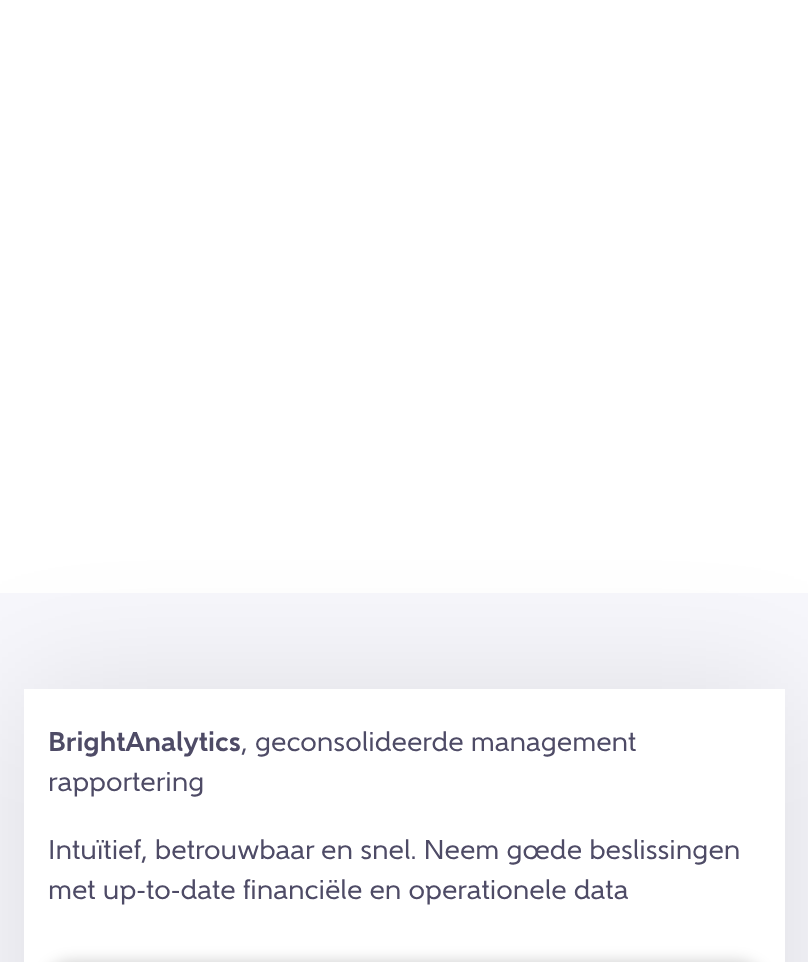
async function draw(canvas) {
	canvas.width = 808;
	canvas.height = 962;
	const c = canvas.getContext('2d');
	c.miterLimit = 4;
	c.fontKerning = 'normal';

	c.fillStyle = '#fff';
	c.fillRect(0, 0, 808, 962);
	c.fillStyle = '#f7f7fc';
	c.fillRect(0, 593, 808, 369);
	c.fillStyle = '#0000001a';
	c.filter = 'blur(67.5px)';
	c.beginPath();
	c.rect(18, 689, 773, 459);
	c.fill();
	c.filter = 'none';
	c.fillStyle = '#fff';
	c.fillRect(24, 689, 761, 273);
	c.font = 'bold 27px "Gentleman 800"';
	c.fillStyle = '#4e4b66';
	c.fillText('BrightAnalytics', 48, 751);
	c.font = '27px "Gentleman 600"';
	for (const [text, x, y] of [
		[', geconsolideerde management', 241, 751],
		['rapportering', 48, 791],
		['Intuïtief, betrouwbaar en snel. Neem goede beslissingen', 48, 859],
		['met up-to-date financiële en operationele data', 48, 899],
	]) {
		c.fillText(text, x, y);
	}
	c.fillStyle = '#00000033';
	c.filter = 'blur(7.5px)';
	c.beginPath();
	c.roundRect(42, 962, 725, 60, 37.5);
	c.fill();
	c.filter = 'none';
}

draw(document.querySelector('canvas'));
